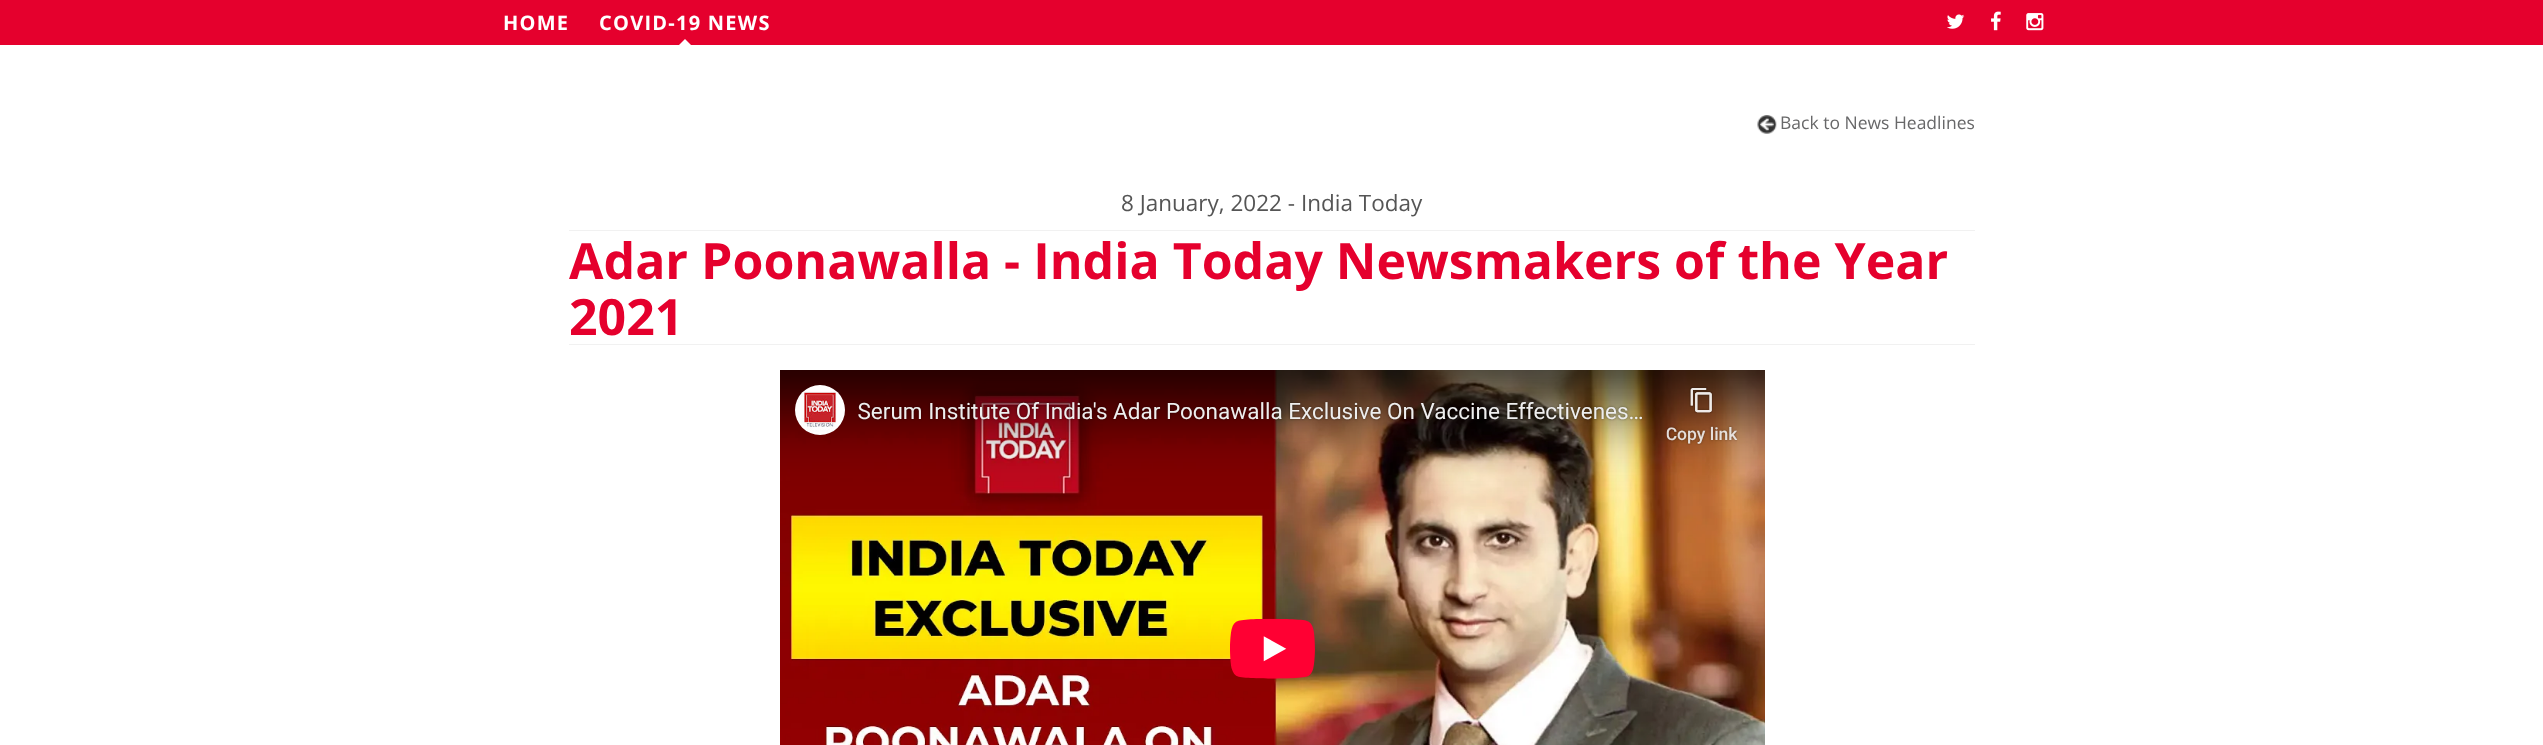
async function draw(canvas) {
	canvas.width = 2543;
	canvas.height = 745;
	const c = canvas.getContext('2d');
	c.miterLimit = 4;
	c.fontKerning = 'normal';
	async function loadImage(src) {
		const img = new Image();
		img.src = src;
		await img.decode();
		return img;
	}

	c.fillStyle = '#fff';
	c.fillRect(0, 0, 2543, 745);
	c.fillStyle = '#e5002d';
	c.fillRect(0, 0, 2543, 45);
	c.letterSpacing = '1.25px';
	c.font = 'bold 20px Open Sans';
	c.fillStyle = '#fff';
	c.fillText('HOME', 503, 30);
	c.fillText('COVID-19 NEWS', 599, 30);
	c.beginPath();
	c.moveTo(691, 45);
	c.lineTo(679, 45);
	c.lineTo(685, 39);
	c.closePath();
	c.fill();
	c.drawImage(await loadImage('img1.png'), 1947, 14, 18, 15);
	c.drawImage(await loadImage('img2.png'), 1991, 11, 10, 20);
	c.drawImage(await loadImage('img3.png'), 2026, 13, 18, 18);
	c.drawImage(await loadImage('img4.png'), 1757, 115, 20, 19);
	c.letterSpacing = '0px';
	c.font = '17.5px Open Sans';
	c.fillStyle = '#686869';
	c.fillText('Back to News Headlines', 1780, 129);
	c.font = '22.5px Open Sans';
	c.fillStyle = '#555';
	c.fillText('8 January, 2022 - India Today', 1121, 211);
	c.fillStyle = '#f1f1f1';
	c.fillRect(569, 230, 1406, 1);
	c.fillRect(569, 344, 1406, 1);
	c.font = 'bold 50px Open Sans';
	c.fillStyle = '#e5002d';
	c.fillText('Adar Poonawalla - India Today Newsmakers of the Year', 569, 279);
	c.fillText('2021', 569, 335);
	c.drawImage(await loadImage('img5.png'), 780, 370, 985, 375);
}

draw(document.querySelector('canvas'));
